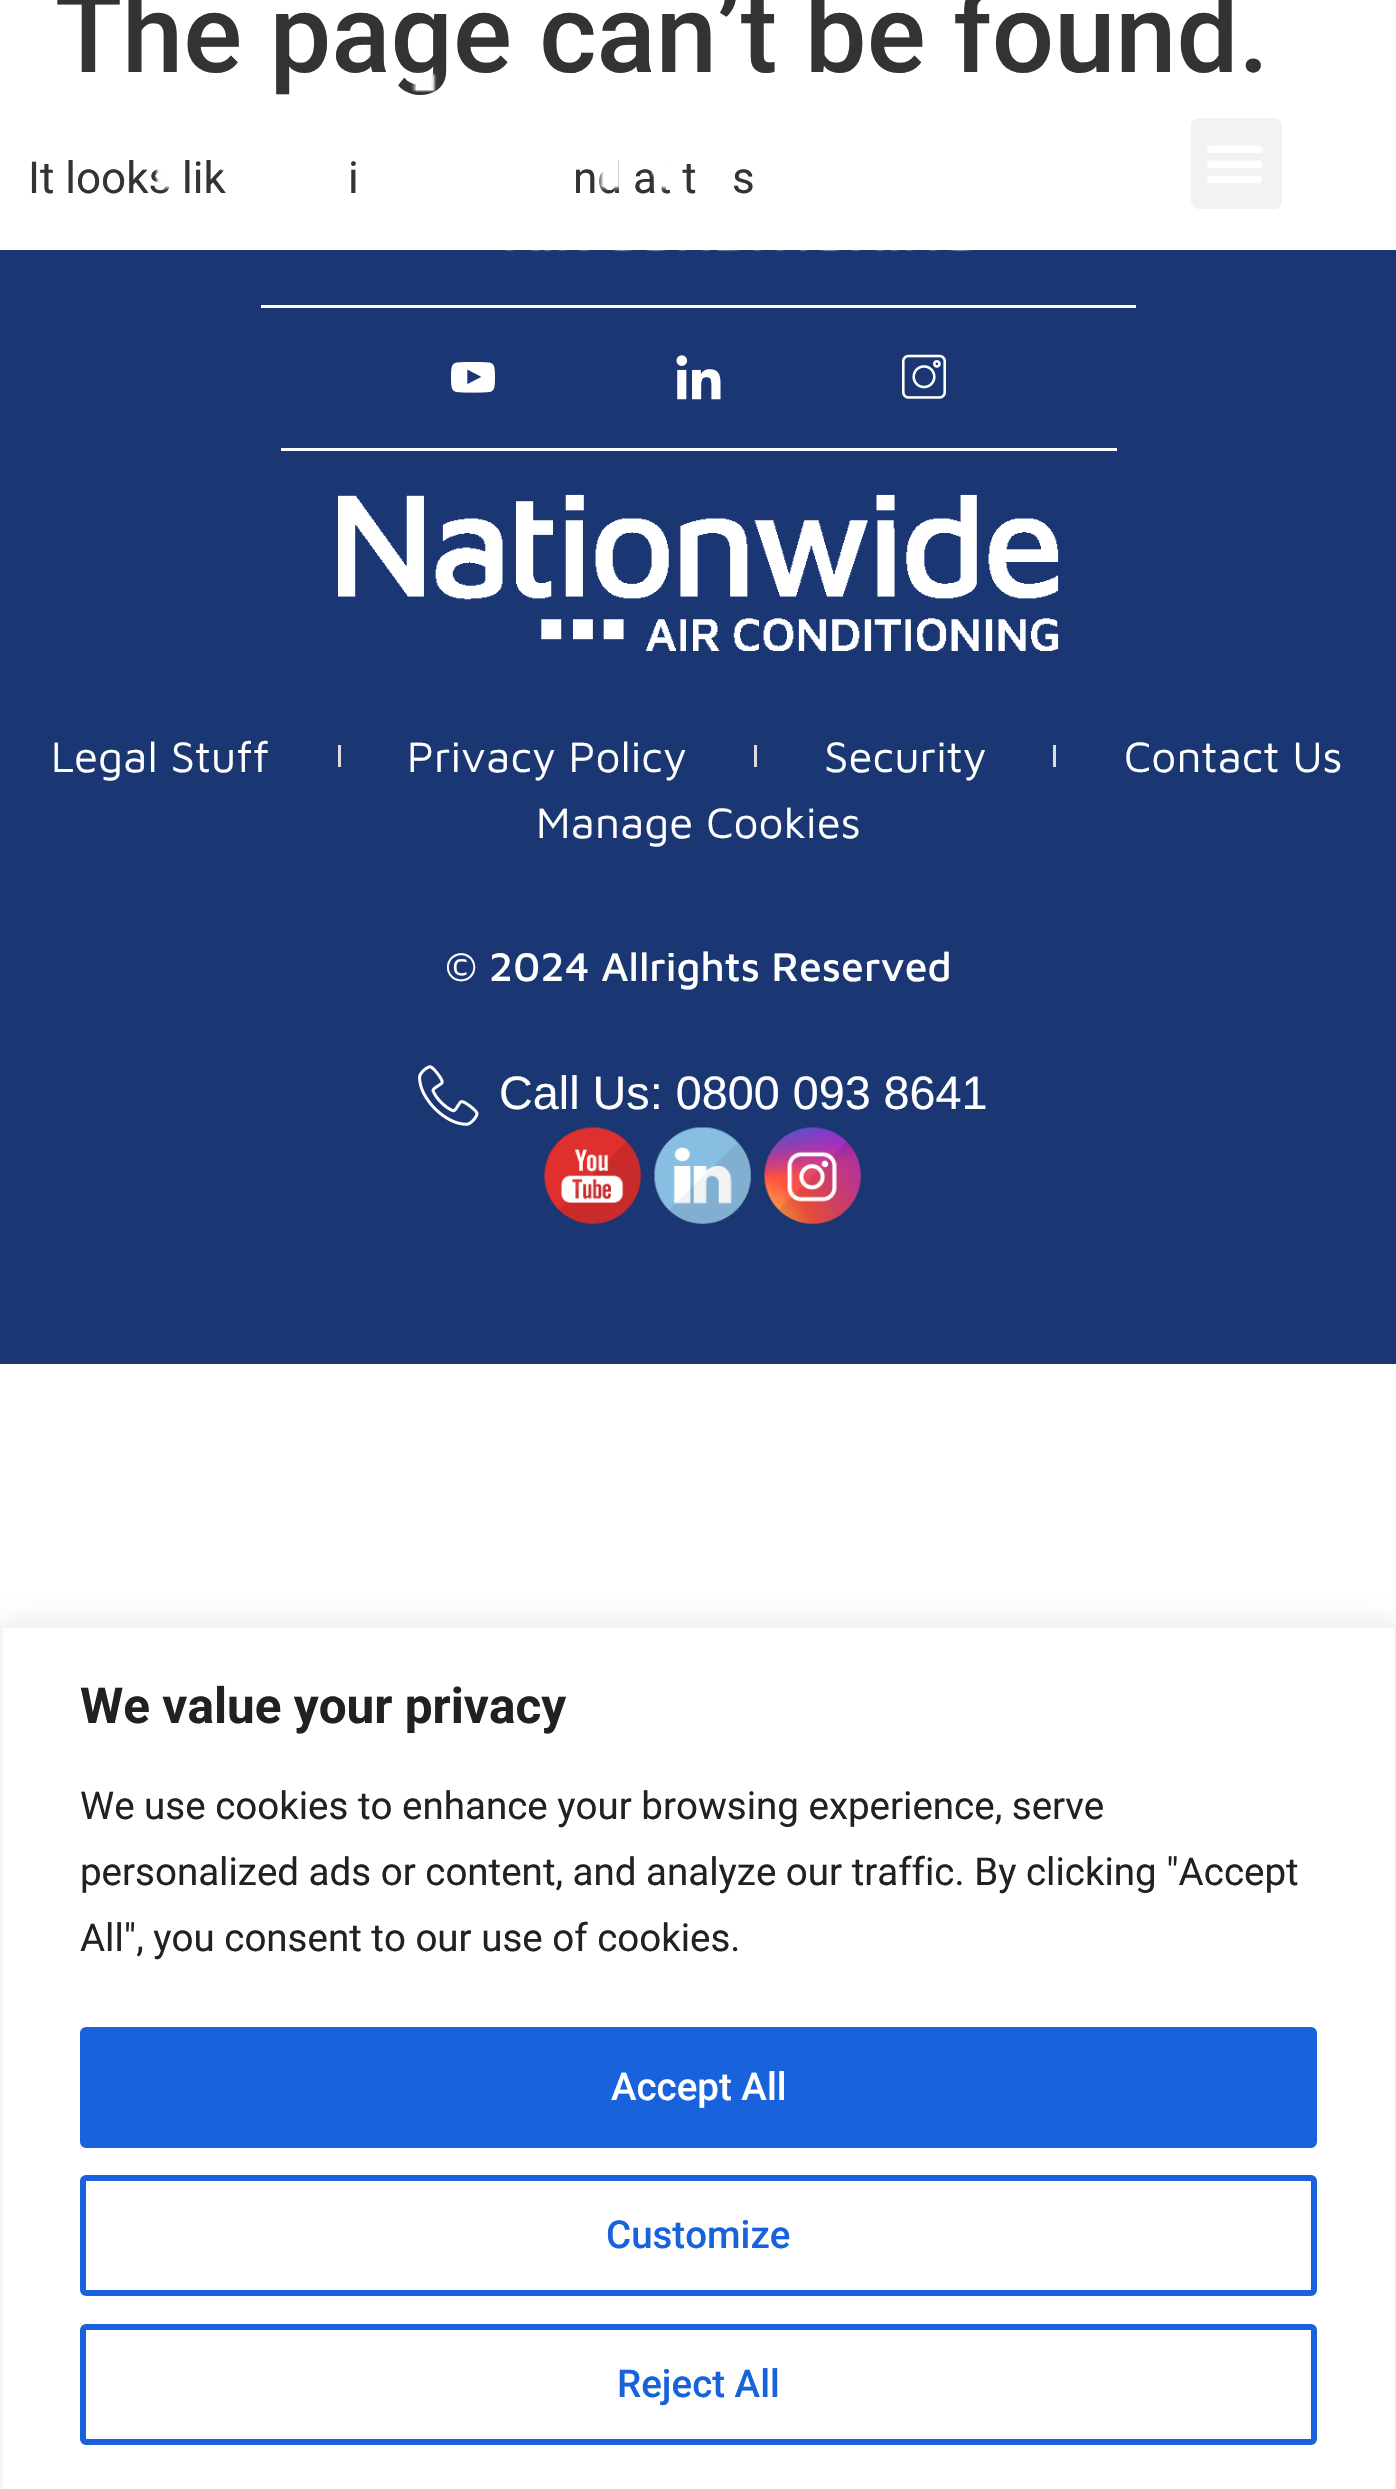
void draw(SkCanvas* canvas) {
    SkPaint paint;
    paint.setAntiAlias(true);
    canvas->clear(0xFFFFFFFF);
    SkFont font1(fontMgr->matchFamilyStyle("Roboto", SkFontStyle(500, SkFontStyle::kNormal_Width, SkFontStyle::kUpright_Slant)), 110);
    font1.setSubpixel(true);
    paint.setColor(0xFF333333);
    canvas->drawString("The page can’t be found.", 55, 72, font1, paint);
    SkFont font2(fontMgr->matchFamilyStyle("Roboto", SkFontStyle::Normal()), 44);
    font2.setSubpixel(true);
    canvas->drawString("It looks lik", 28, 193, font2, paint);
    canvas->drawString("i", 348, 193, font2, paint);
    canvas->drawString("nd at t", 573, 193, font2, paint);
    canvas->drawString("s", 732, 193, font2, paint);
    paint.setColor(0xFF1A3673);
    canvas->drawRect(SkRect::MakeXYWH(0, 250, 1396, 1114), paint);
    canvas->drawImageRect(SkImages::DeferredFromEncodedData(SkData::MakeFromFileName("img1.png")), SkRect::MakeXYWH(153, 71, 820, 181), SkSamplingOptions());
    paint.setColor(0xFFF2F2F2);
    canvas->drawRoundRect(SkRect::MakeXYWH(1191, 118, 91, 91), 8, 8, paint);
    canvas->drawImageRect(SkImages::DeferredFromEncodedData(SkData::MakeFromFileName("img2.png")), SkRect::MakeXYWH(1207, 145, 56, 38), SkSamplingOptions());
    paint.setColor(0xFFFFFFFF);
    canvas->drawRect(SkRect::MakeXYWH(261, 305, 875, 3), paint);
    canvas->drawImageRect(SkImages::DeferredFromEncodedData(SkData::MakeFromFileName("img3.png")), SkRect::MakeXYWH(451, 362, 44, 31), SkSamplingOptions());
    canvas->drawImageRect(SkImages::DeferredFromEncodedData(SkData::MakeFromFileName("img4.png")), SkRect::MakeXYWH(676, 355, 45, 45), SkSamplingOptions());
    canvas->drawImageRect(SkImages::DeferredFromEncodedData(SkData::MakeFromFileName("img5.png")), SkRect::MakeXYWH(902, 354, 44, 45), SkSamplingOptions());
    canvas->drawRect(SkRect::MakeXYWH(281, 448, 836, 3), paint);
    canvas->drawImageRect(SkImages::DeferredFromEncodedData(SkData::MakeFromFileName("img6.png")), SkRect::MakeXYWH(338, 494, 721, 157), SkSamplingOptions());
    SkFont font3(fontMgr->matchFamilyStyle("Maven Pro", SkFontStyle::Normal()), 44);
    font3.setSubpixel(true);
    canvas->drawString("Legal Stuff", 51, 772, font3, paint);
    paint.setColor(0xFFDDDDDD);
    canvas->drawRect(SkRect::MakeXYWH(338, 745, 3, 22), paint);
    paint.setColor(0xFFFFFFFF);
    canvas->drawString("Privacy Policy", 407, 772, font3, paint);
    paint.setColor(0xFFDDDDDD);
    canvas->drawRect(SkRect::MakeXYWH(754, 745, 3, 22), paint);
    paint.setColor(0xFFFFFFFF);
    canvas->drawString("Security", 824, 772, font3, paint);
    paint.setColor(0xFFDDDDDD);
    canvas->drawRect(SkRect::MakeXYWH(1053, 745, 3, 22), paint);
    paint.setColor(0xFFFFFFFF);
    canvas->drawString("Contact Us", 1124, 772, font3, paint);
    canvas->drawString("Manage Cookies", 536, 838, font3, paint);
    SkFont font4(fontMgr->matchFamilyStyle("Maven Pro", SkFontStyle(500, SkFontStyle::kNormal_Width, SkFontStyle::kUpright_Slant)), 41.25f);
    font4.setSubpixel(true);
    canvas->drawString("© 2024 Allrights Reserved", 445, 981, font4, paint);
    canvas->drawImageRect(SkImages::DeferredFromEncodedData(SkData::MakeFromFileName("img7.png")), SkRect::MakeXYWH(418, 1065, 61, 61), SkSamplingOptions());
    SkFont font5(fontMgr->matchFamilyStyle("Liberation Sans", SkFontStyle::Normal()), 46.75f);
    font5.setSubpixel(true);
    canvas->drawString("Call Us: 0800 093 8641", 499, 1109, font5, paint);
    canvas->drawImageRect(SkImages::DeferredFromEncodedData(SkData::MakeFromFileName("img8.png")), SkRect::MakeXYWH(544, 1127, 97, 97), SkSamplingOptions());
    canvas->drawImageRect(SkImages::DeferredFromEncodedData(SkData::MakeFromFileName("img9.png")), SkRect::MakeXYWH(654, 1127, 97, 97), SkSamplingOptions());
    canvas->drawImageRect(SkImages::DeferredFromEncodedData(SkData::MakeFromFileName("img10.png")), SkRect::MakeXYWH(764, 1127, 97, 97), SkSamplingOptions());
    paint.setColor(0x4DACABAB);
    paint.setMaskFilter(SkMaskFilter::MakeBlur(kNormal_SkBlurStyle, 14));
    canvas->drawRect(SkRect::MakeXYWH(0, 1623, 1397, 866), paint);
    paint.setMaskFilter(nullptr);
    paint.setColor(0xFFFFFFFF);
    canvas->drawRect(SkRect::MakeXYWH(1.5f, 1626.5f, 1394, 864), paint);
    paint.setStyle(SkPaint::kStroke_Style);
    paint.setStrokeWidth(3);
    paint.setColor(0xFFF4F4F4);
    canvas->drawRect(SkRect::MakeXYWH(1.5f, 1626.5f, 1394, 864), paint);
    SkFont font6(fontMgr->matchFamilyStyle("Roboto", SkFontStyle::Bold()), 49.5f);
    font6.setSubpixel(true);
    paint.setStyle(SkPaint::kFill_Style);
    paint.setColor(0xFF212121);
    canvas->drawString("We value your privacy", 80, 1723, font6, paint);
    SkFont font7(fontMgr->matchFamilyStyle("Roboto", SkFontStyle::Normal()), 38.5f);
    font7.setSubpixel(true);
    canvas->drawString("We use cookies to enhance your browsing experience, serve", 80, 1819, font7, paint);
    canvas->drawString("personalized ads or content, and analyze our traffic. By clicking \"Accept", 80, 1885, font7, paint);
    canvas->drawString("All\", you consent to our use of cookies.", 80, 1951, font7, paint);
    paint.setColor(0xFF1863DC);
    canvas->drawRoundRect(SkRect::MakeXYWH(83, 2030, 1231, 115), 3, 3, paint);
    paint.setStyle(SkPaint::kStroke_Style);
    paint.setStrokeWidth(6);
    canvas->drawRoundRect(SkRect::MakeXYWH(83, 2030, 1231, 115), 3, 3, paint);
    SkFont font8(fontMgr->matchFamilyStyle("Roboto", SkFontStyle(500, SkFontStyle::kNormal_Width, SkFontStyle::kUpright_Slant)), 38.5f);
    font8.setSubpixel(true);
    paint.setStyle(SkPaint::kFill_Style);
    paint.setColor(0xFFFFFFFF);
    canvas->drawString("Accept All", 611, 2100, font8, paint);
    paint.setStyle(SkPaint::kStroke_Style);
    paint.setColor(0xFF1863DC);
    canvas->drawRoundRect(SkRect::MakeXYWH(83, 2178, 1231, 115), 3, 3, paint);
    paint.setStyle(SkPaint::kFill_Style);
    canvas->drawString("Customize", 606, 2248, font8, paint);
    paint.setStyle(SkPaint::kStroke_Style);
    canvas->drawRoundRect(SkRect::MakeXYWH(83, 2327, 1231, 115), 3, 3, paint);
    paint.setStyle(SkPaint::kFill_Style);
    canvas->drawString("Reject All", 617, 2397, font8, paint);
}
